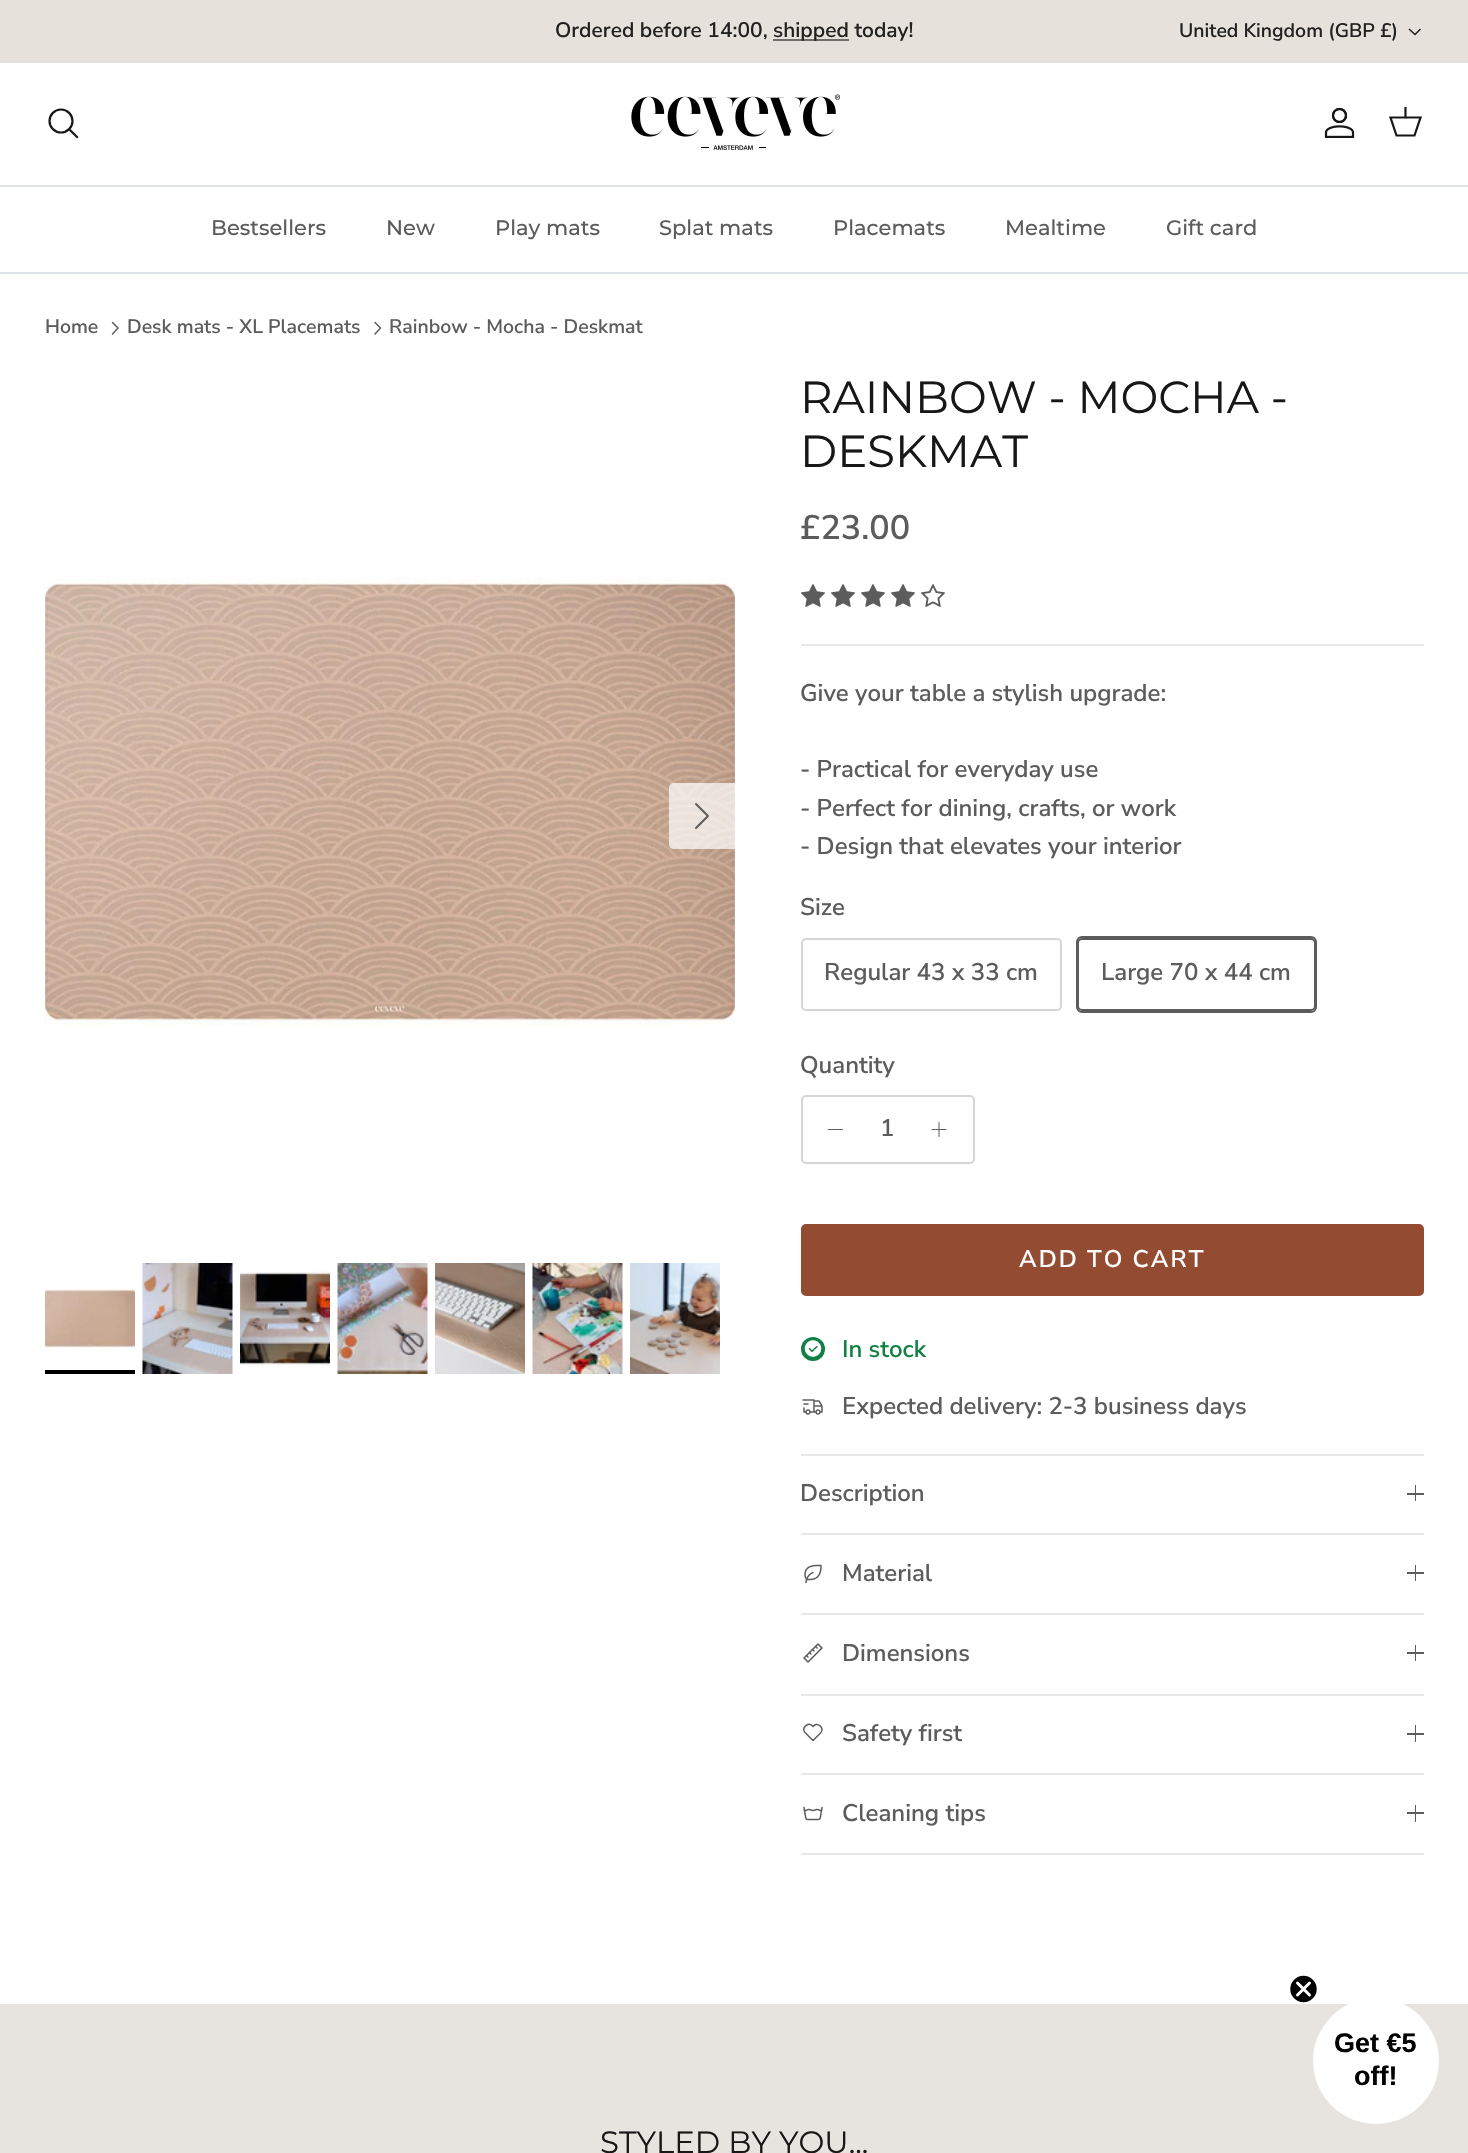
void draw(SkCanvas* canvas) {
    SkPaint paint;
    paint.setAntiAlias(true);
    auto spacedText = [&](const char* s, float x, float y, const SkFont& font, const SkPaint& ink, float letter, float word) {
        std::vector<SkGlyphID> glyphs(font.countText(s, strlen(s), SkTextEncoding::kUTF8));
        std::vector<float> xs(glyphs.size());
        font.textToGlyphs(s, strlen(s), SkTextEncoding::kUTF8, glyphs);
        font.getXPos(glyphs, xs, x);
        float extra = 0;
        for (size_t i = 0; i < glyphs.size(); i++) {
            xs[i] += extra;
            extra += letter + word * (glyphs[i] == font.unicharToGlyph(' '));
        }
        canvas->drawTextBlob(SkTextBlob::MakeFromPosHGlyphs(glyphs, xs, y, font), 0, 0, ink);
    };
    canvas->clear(0xFFFFFFFF);
    paint.setColor(0xFFE6E1DB);
    canvas->drawRect(SkRect::MakeXYWH(0, 0, 1468, 63), paint);
    SkFont font1(fontMgr->matchFamilyStyle("Nunito Sans", SkFontStyle(600, SkFontStyle::kNormal_Width, SkFontStyle::kUpright_Slant)), 21);
    font1.setSubpixel(true);
    paint.setColor(0xFF212121);
    canvas->drawString("Ordered before 14:00,", 555, 37, font1, paint);
    paint.setColor(0xFF706E6B);
    canvas->drawRect(SkRect::MakeXYWH(773, 39, 76, 2), paint);
    paint.setColor(0xFF212121);
    canvas->drawString("shipped today!", 773, 37, font1, paint);
    SkFont font2(fontMgr->matchFamilyStyle("Nunito Sans", SkFontStyle(600, SkFontStyle::kNormal_Width, SkFontStyle::kUpright_Slant)), 19.5f);
    font2.setSubpixel(true);
    canvas->drawString("United Kingdom (GBP £)", 1179, 37, font2, paint);
    paint.setStyle(SkPaint::kStroke_Style);
    paint.setStrokeWidth(1.5f);
    canvas->drawPath(SkPathBuilder().moveTo(1420.5f, 29).lineTo(1415, 34.5f).lineTo(1409, 29).detach(), paint);
    paint.setStyle(SkPaint::kFill_Style);
    paint.setColor(0xFFDFE3E8);
    canvas->drawRect(SkRect::MakeXYWH(0, 185, 1468, 2), paint);
    paint.setStyle(SkPaint::kStroke_Style);
    paint.setStrokeWidth(2.2f);
    paint.setColor(0xFF171717);
    canvas->drawCircle(61, 121, 11.5f, paint);
    paint.setStrokeCap(SkPaint::kSquare_Cap);
    canvas->drawPath(SkPathBuilder().moveTo(70.5f, 130.5f).lineTo(77, 137).detach(), paint);
    canvas->drawImageRect(SkImages::DeferredFromEncodedData(SkData::MakeFromFileName("img1.png")), SkRect::MakeXYWH(631, 94, 210, 56), SkSamplingOptions());
    canvas->drawImageRect(SkImages::DeferredFromEncodedData(SkData::MakeFromFileName("img2.png")), SkRect::MakeXYWH(1324, 107, 31, 31), SkSamplingOptions());
    paint.setStrokeCap(SkPaint::kButt_Cap);
    canvas->drawPath(SkPathBuilder().moveTo(1390.5f, 117.5f).lineTo(1420.5f, 117.5f).lineTo(1414.5f, 135.5f).lineTo(1396.5f, 135.5f).close().detach(), paint);
    paint.setStrokeCap(SkPaint::kSquare_Cap);
    canvas->drawPath(SkPathBuilder().moveTo(1405.5f, 117).lineTo(1405.5f, 108).detach(), paint);
    paint.setStyle(SkPaint::kFill_Style);
    paint.setColor(0xFFDFE3E8);
    canvas->drawRect(SkRect::MakeXYWH(0, 272, 1468, 2), paint);
    SkFont font3(fontMgr->matchFamilyStyle("Montserrat", SkFontStyle(500, SkFontStyle::kNormal_Width, SkFontStyle::kUpright_Slant)), 21);
    font3.setSubpixel(true);
    paint.setColor(0xFF5C5C5C);
    canvas->drawString("Bestsellers", 211, 235, font3, paint);
    canvas->drawString("New", 386, 235, font3, paint);
    canvas->drawString("Play mats", 495, 235, font3, paint);
    canvas->drawString("Splat mats", 659, 235, font3, paint);
    canvas->drawString("Placemats", 833, 235, font3, paint);
    canvas->drawString("Mealtime", 1005, 235, font3, paint);
    canvas->drawString("Gift card", 1166, 235, font3, paint);
    canvas->drawString("Home", 45, 333, font2, paint);
    paint.setStyle(SkPaint::kStroke_Style);
    paint.setStrokeWidth(1.5f);
    paint.setStrokeCap(SkPaint::kRound_Cap);
    paint.setStrokeJoin(SkPaint::kRound_Join);
    canvas->drawPath(SkPathBuilder().moveTo(112.5f, 334).lineTo(118, 328).lineTo(112.5f, 322.5f).detach(), paint);
    paint.setStyle(SkPaint::kFill_Style);
    canvas->drawString("Desk mats - XL Placemats", 127, 333, font2, paint);
    paint.setStyle(SkPaint::kStroke_Style);
    canvas->drawPath(SkPathBuilder().moveTo(375, 334).lineTo(380.5f, 328).lineTo(375, 322.5f).detach(), paint);
    paint.setStyle(SkPaint::kFill_Style);
    canvas->drawString("Rainbow - Mocha - Deskmat", 389, 333, font2, paint);
    canvas->drawImageRect(SkImages::DeferredFromEncodedData(SkData::MakeFromFileName("img3.png")), SkRect::MakeXYWH(45, 577, 690, 449), SkSamplingOptions());
    paint.setColor(0xB3FFFFFF);
    canvas->drawPath(SkPathBuilder().moveTo(674, 783).lineTo(735, 783).lineTo(735, 849).lineTo(674, 849).cubicTo(671, 849, 669, 847, 669, 844).lineTo(669, 788).cubicTo(669, 785, 671, 783, 674, 783).close().detach(), paint);
    paint.setStyle(SkPaint::kStroke_Style);
    paint.setStrokeWidth(2);
    paint.setColor(0xFF5C5C5C);
    canvas->drawPath(SkPathBuilder().moveTo(696, 828).lineTo(708, 816).lineTo(696, 804).detach(), paint);
    canvas->drawImageRect(SkImages::DeferredFromEncodedData(SkData::MakeFromFileName("img4.png")), SkRect::MakeXYWH(45, 1289, 90, 62), SkSamplingOptions());
    paint.setStyle(SkPaint::kFill_Style);
    paint.setColor(0xFF000000);
    canvas->drawRect(SkRect::MakeXYWH(45, 1370, 90, 4), paint);
    canvas->drawImageRect(SkImages::DeferredFromEncodedData(SkData::MakeFromFileName("img5.png")), SkRect::MakeXYWH(142, 1263, 91, 111), SkSamplingOptions());
    canvas->drawImageRect(SkImages::DeferredFromEncodedData(SkData::MakeFromFileName("img6.png")), SkRect::MakeXYWH(240, 1270, 90, 97), SkSamplingOptions());
    canvas->drawImageRect(SkImages::DeferredFromEncodedData(SkData::MakeFromFileName("img7.png")), SkRect::MakeXYWH(337, 1263, 91, 111), SkSamplingOptions());
    canvas->drawImageRect(SkImages::DeferredFromEncodedData(SkData::MakeFromFileName("img8.png")), SkRect::MakeXYWH(435, 1263, 90, 111), SkSamplingOptions());
    canvas->drawImageRect(SkImages::DeferredFromEncodedData(SkData::MakeFromFileName("img9.png")), SkRect::MakeXYWH(532, 1263, 91, 111), SkSamplingOptions());
    canvas->drawImageRect(SkImages::DeferredFromEncodedData(SkData::MakeFromFileName("img10.png")), SkRect::MakeXYWH(630, 1263, 90, 111), SkSamplingOptions());
    SkFont font4(fontMgr->matchFamilyStyle("Montserrat", SkFontStyle::Normal()), 45);
    font4.setSubpixel(true);
    paint.setColor(0xFF171717);
    canvas->drawString("RAINBOW - MOCHA -", 800, 413, font4, paint);
    canvas->drawString("DESKMAT", 800, 467, font4, paint);
    SkFont font5(fontMgr->matchFamilyStyle("Nunito Sans", SkFontStyle(600, SkFontStyle::kNormal_Width, SkFontStyle::kUpright_Slant)), 34);
    font5.setSubpixel(true);
    paint.setColor(0xFF5C5C5C);
    canvas->drawString("£23.00", 800, 539, font5, paint);
    canvas->drawImageRect(SkImages::DeferredFromEncodedData(SkData::MakeFromFileName("img11.png")), SkRect::MakeXYWH(801, 584, 24, 23), SkSamplingOptions());
    canvas->drawImageRect(SkImages::DeferredFromEncodedData(SkData::MakeFromFileName("img11.png")), SkRect::MakeXYWH(831, 584, 24, 23), SkSamplingOptions());
    canvas->drawImageRect(SkImages::DeferredFromEncodedData(SkData::MakeFromFileName("img11.png")), SkRect::MakeXYWH(861, 584, 24, 23), SkSamplingOptions());
    canvas->drawImageRect(SkImages::DeferredFromEncodedData(SkData::MakeFromFileName("img11.png")), SkRect::MakeXYWH(891, 584, 24, 23), SkSamplingOptions());
    canvas->drawImageRect(SkImages::DeferredFromEncodedData(SkData::MakeFromFileName("img12.png")), SkRect::MakeXYWH(921, 584, 24, 23), SkSamplingOptions());
    paint.setColor(0xFFE8E8E8);
    canvas->drawRect(SkRect::MakeXYWH(801, 644, 623, 2), paint);
    SkFont font6(fontMgr->matchFamilyStyle("Nunito Sans", SkFontStyle(600, SkFontStyle::kNormal_Width, SkFontStyle::kUpright_Slant)), 24);
    font6.setSubpixel(true);
    paint.setColor(0xFF5C5C5C);
    canvas->drawString("Give your table a stylish upgrade:", 800, 701, font6, paint);
    canvas->drawString("- Practical for everyday use", 800, 777, font6, paint);
    canvas->drawString("- Perfect for dining, crafts, or work", 800, 816, font6, paint);
    canvas->drawString("- Design that elevates your interior", 800, 854, font6, paint);
    canvas->drawString("Size", 800, 915, font6, paint);
    paint.setStyle(SkPaint::kStroke_Style);
    paint.setStrokeCap(SkPaint::kButt_Cap);
    paint.setStrokeJoin(SkPaint::kMiter_Join);
    paint.setColor(0xFFD6D6D6);
    canvas->drawRoundRect(SkRect::MakeXYWH(802, 939, 259, 71), 4, 4, paint);
    paint.setStyle(SkPaint::kFill_Style);
    paint.setColor(0xFF5C5C5C);
    canvas->drawString("Regular 43 x 33 cm", 824, 980, font6, paint);
    paint.setStyle(SkPaint::kStroke_Style);
    canvas->drawRoundRect(SkRect::MakeXYWH(1077, 937, 239, 75), 5, 5, paint);
    paint.setStyle(SkPaint::kFill_Style);
    paint.setColor(0xFFFFFFFF);
    canvas->drawRoundRect(SkRect::MakeXYWH(1078, 939, 237, 71), 4, 4, paint);
    paint.setStyle(SkPaint::kStroke_Style);
    paint.setColor(0xFF5C5C5C);
    canvas->drawRoundRect(SkRect::MakeXYWH(1078, 939, 237, 71), 4, 4, paint);
    paint.setStyle(SkPaint::kFill_Style);
    canvas->drawString("Large 70 x 44 cm", 1101, 980, font6, paint);
    canvas->drawString("Quantity", 800, 1073, font6, paint);
    paint.setStyle(SkPaint::kStroke_Style);
    paint.setColor(0xFFD6D6D6);
    canvas->drawRoundRect(SkRect::MakeXYWH(802, 1096, 172, 67), 4, 4, paint);
    paint.setStrokeWidth(1);
    paint.setStrokeCap(SkPaint::kRound_Cap);
    paint.setStrokeJoin(SkPaint::kRound_Join);
    paint.setColor(0xFF5C5C5C);
    canvas->drawPath(SkPathBuilder().moveTo(828.5f, 1129.5f).lineTo(842.5f, 1129.5f).detach(), paint);
    paint.setStyle(SkPaint::kFill_Style);
    canvas->drawString("1", 880, 1136, font6, paint);
    paint.setStyle(SkPaint::kStroke_Style);
    canvas->drawPath(SkPathBuilder().moveTo(939, 1122.5f).lineTo(939, 1136.5f).moveTo(932, 1129.5f).lineTo(946, 1129.5f).detach(), paint);
    paint.setStyle(SkPaint::kFill_Style);
    paint.setColor(0xFF934B32);
    canvas->drawRoundRect(SkRect::MakeXYWH(802, 1225, 621, 70), 4, 4, paint);
    paint.setStyle(SkPaint::kStroke_Style);
    paint.setStrokeWidth(2);
    paint.setStrokeCap(SkPaint::kButt_Cap);
    paint.setStrokeJoin(SkPaint::kMiter_Join);
    canvas->drawRoundRect(SkRect::MakeXYWH(802, 1225, 621, 70), 4, 4, paint);
    paint.setStyle(SkPaint::kFill_Style);
    paint.setColor(0xFFFFFFFF);
    spacedText("ADD TO CART", 1019, 1267, font6, paint, 2, 0);
    paint.setColor(0xFF108043);
    canvas->drawCircle(813, 1349, 12, paint);
    canvas->drawImageRect(SkImages::DeferredFromEncodedData(SkData::MakeFromFileName("img13.png")), SkRect::MakeXYWH(804, 1340, 18, 17), SkSamplingOptions());
    canvas->drawString("In stock", 842, 1357, font6, paint);
    canvas->drawImageRect(SkImages::DeferredFromEncodedData(SkData::MakeFromFileName("img14.png")), SkRect::MakeXYWH(802, 1399, 21, 16), SkSamplingOptions());
    paint.setColor(0xFF5C5C5C);
    canvas->drawString("Expected delivery: 2-3 business days", 842, 1414, font6, paint);
    paint.setColor(0xFFE7E7E7);
    canvas->drawRect(SkRect::MakeXYWH(801, 1454, 623, 2), paint);
    canvas->drawRect(SkRect::MakeXYWH(801, 1533, 623, 2), paint);
    paint.setColor(0xFF5C5C5C);
    canvas->drawString("Description", 800, 1501, font6, paint);
    canvas->drawRect(SkRect::MakeXYWH(1415, 1485, 1, 16), paint);
    canvas->drawRect(SkRect::MakeXYWH(1407, 1493, 17, 2), paint);
    paint.setColor(0xFFE7E7E7);
    canvas->drawRect(SkRect::MakeXYWH(801, 1613, 623, 2), paint);
    canvas->drawImageRect(SkImages::DeferredFromEncodedData(SkData::MakeFromFileName("img15.png")), SkRect::MakeXYWH(804, 1564, 18, 20), SkSamplingOptions());
    paint.setColor(0xFF5C5C5C);
    canvas->drawString("Material", 842, 1581, font6, paint);
    canvas->drawRect(SkRect::MakeXYWH(1415, 1565, 1, 16), paint);
    canvas->drawRect(SkRect::MakeXYWH(1407, 1572, 17, 2), paint);
    paint.setColor(0xFFE7E7E7);
    canvas->drawRect(SkRect::MakeXYWH(801, 1694, 623, 2), paint);
    canvas->drawImageRect(SkImages::DeferredFromEncodedData(SkData::MakeFromFileName("img16.png")), SkRect::MakeXYWH(803, 1643, 20, 20), SkSamplingOptions());
    paint.setColor(0xFF5C5C5C);
    canvas->drawString("Dimensions", 842, 1661, font6, paint);
    canvas->drawRect(SkRect::MakeXYWH(1415, 1645, 1, 16), paint);
    canvas->drawRect(SkRect::MakeXYWH(1407, 1652, 17, 2), paint);
    paint.setColor(0xFFE7E7E7);
    canvas->drawRect(SkRect::MakeXYWH(801, 1773, 623, 2), paint);
    paint.setStyle(SkPaint::kStroke_Style);
    paint.setStrokeWidth(1.5f);
    paint.setStrokeCap(SkPaint::kRound_Cap);
    paint.setStrokeJoin(SkPaint::kRound_Join);
    paint.setColor(0xFF5C5C5C);
    canvas->drawPath(SkPathBuilder().moveTo(820.5f, 1733).lineTo(813, 1740.5f).lineTo(804.5f, 1732).cubicTo(801.5f, 1726.5f, 809.5f, 1721.5f, 813, 1726.5f).cubicTo(817, 1721, 825.5f, 1728, 820.5f, 1733).detach(), paint);
    paint.setStyle(SkPaint::kFill_Style);
    canvas->drawString("Safety first", 842, 1741, font6, paint);
    canvas->drawRect(SkRect::MakeXYWH(1415, 1725, 1, 17), paint);
    canvas->drawRect(SkRect::MakeXYWH(1407, 1733, 17, 2), paint);
    paint.setColor(0xFFE7E7E7);
    canvas->drawRect(SkRect::MakeXYWH(801, 1853, 623, 2), paint);
    canvas->drawImageRect(SkImages::DeferredFromEncodedData(SkData::MakeFromFileName("img17.png")), SkRect::MakeXYWH(803, 1806, 20, 15), SkSamplingOptions());
    paint.setColor(0xFF5C5C5C);
    canvas->drawString("Cleaning tips", 842, 1821, font6, paint);
    canvas->drawRect(SkRect::MakeXYWH(1415, 1805, 1, 17), paint);
    canvas->drawRect(SkRect::MakeXYWH(1407, 1812, 17, 2), paint);
    paint.setColor(0xFFE7E4E0);
    canvas->drawRect(SkRect::MakeXYWH(0, 2004, 1468, 149), paint);
    SkFont font7(fontMgr->matchFamilyStyle("Montserrat", SkFontStyle::Normal()), 30.75f);
    font7.setSubpixel(true);
    paint.setColor(0xFF171717);
    canvas->drawString("STYLED BY YOU...", 600, 2153, font7, paint);
    paint.setColor(0xFFFFFFFF);
    canvas->drawCircle(1376, 2061, 63, paint);
    paint.setColor(0xFF000000);
    canvas->drawCircle(1303.5f, 1989, 14, paint);
    paint.setStyle(SkPaint::kStroke_Style);
    paint.setStrokeCap(SkPaint::kButt_Cap);
    paint.setStrokeJoin(SkPaint::kMiter_Join);
    paint.setColor(0xFFFFFFFF);
    canvas->drawCircle(1303.5f, 1989, 14, paint);
    paint.setStrokeWidth(3);
    paint.setStrokeCap(SkPaint::kRound_Cap);
    paint.setStrokeJoin(SkPaint::kRound_Join);
    canvas->drawPath(SkPathBuilder().moveTo(1297.5f, 1983).lineTo(1309.5f, 1995).moveTo(1297.5f, 1995).lineTo(1309.5f, 1983).close().detach(), paint);
    SkFont font8(fontMgr->matchFamilyStyle("Liberation Sans", SkFontStyle::Bold()), 27);
    font8.setSubpixel(true);
    paint.setStyle(SkPaint::kFill_Style);
    paint.setColor(0xFF000000);
    canvas->drawString("Get €5", 1334, 2052, font8, paint);
    canvas->drawString("off!", 1354, 2085, font8, paint);
}
